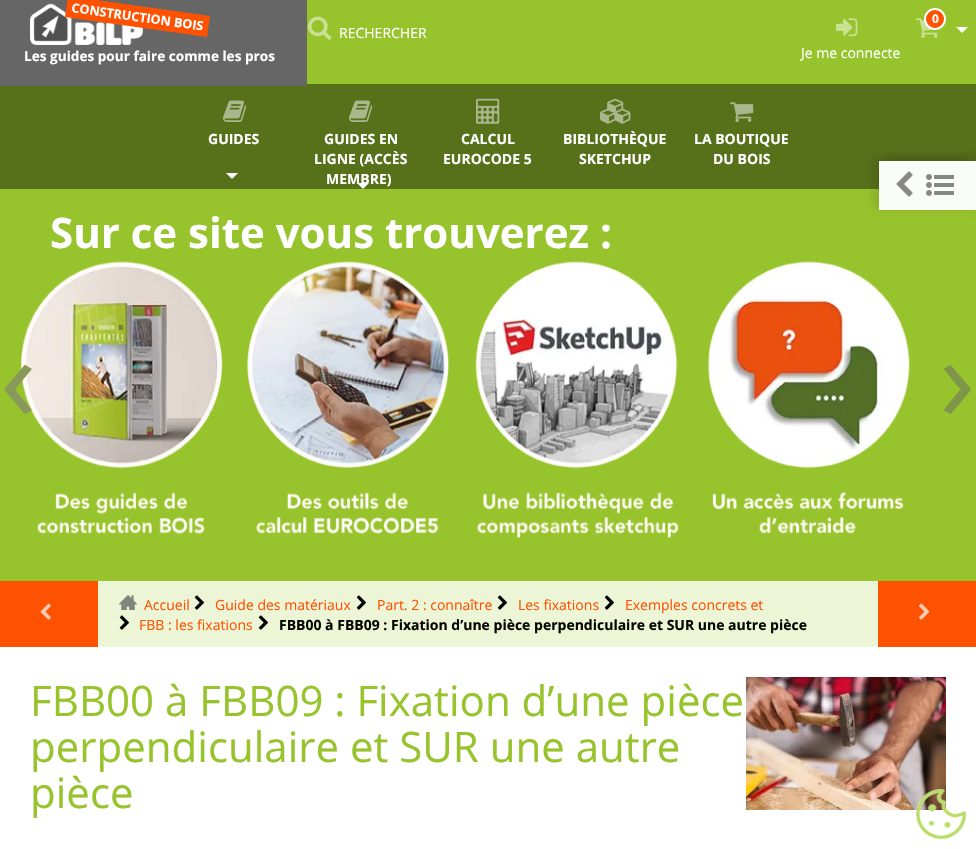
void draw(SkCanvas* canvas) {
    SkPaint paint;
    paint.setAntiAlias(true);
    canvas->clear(0xFFFFFFFF);
    paint.setColor(0xFF97C32D);
    canvas->drawRect(SkRect::MakeXYWH(307, 0, 669, 84), paint);
    paint.setColor(0xFF57701A);
    canvas->drawRect(SkRect::MakeXYWH(0, 84, 976, 105), paint);
    paint.setColor(0xFF666666);
    canvas->drawRect(SkRect::MakeXYWH(0, 0, 307, 86), paint);
    canvas->drawImageRect(SkImages::DeferredFromEncodedData(SkData::MakeFromFileName("img1.png")), SkRect::MakeXYWH(30, 3, 113, 42), SkSamplingOptions());
    paint.setColor(0xFFFF5200);
    canvas->drawPath(SkPathBuilder().moveTo(68, -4).lineTo(210, 16).lineTo(207, 37).lineTo(65, 17).close().detach(), paint);
    SkFont font1(fontMgr->matchFamilyStyle("Open Sans", SkFontStyle::Bold()), 12.6f);
    font1.setSubpixel(true);
    paint.setColor(0xFFFFFFFF);
    canvas->save();
    canvas->rotate(8, 71, 12);
    canvas->drawString("CONSTRUCTION BOIS", 71, 12, font1, paint);
    canvas->restore();
    SkFont font2(fontMgr->matchFamilyStyle("Open Sans", SkFontStyle::Bold()), 13.6f);
    font2.setSubpixel(true);
    canvas->drawString("Les guides pour faire comme les pros", 24, 61, font2, paint);
    canvas->drawImageRect(SkImages::DeferredFromEncodedData(SkData::MakeFromFileName("img2.png")), SkRect::MakeXYWH(916, 18, 24, 20), SkSamplingOptions());
    paint.setColor(0xFFFF5200);
    canvas->drawCircle(935, 19, 10, paint);
    paint.setStyle(SkPaint::kStroke_Style);
    paint.setStrokeWidth(2);
    paint.setColor(0xFFFFFFFF);
    canvas->drawCircle(935, 19, 10, paint);
    SkFont font3(fontMgr->matchFamilyStyle("Open Sans", SkFontStyle::Bold()), 12);
    font3.setSubpixel(true);
    paint.setStyle(SkPaint::kFill_Style);
    canvas->drawString("0", 932, 23, font3, paint);
    canvas->drawPath(SkPathBuilder().moveTo(956, 27).lineTo(968, 27).lineTo(962, 33).close().detach(), paint);
    canvas->drawImageRect(SkImages::DeferredFromEncodedData(SkData::MakeFromFileName("img3.png")), SkRect::MakeXYWH(308, 16, 24, 24), SkSamplingOptions());
    SkFont font4(fontMgr->matchFamilyStyle("Open Sans", SkFontStyle::Normal()), 14);
    font4.setSubpixel(true);
    canvas->drawString("RECHERCHER", 339, 38, font4, paint);
    canvas->drawImageRect(SkImages::DeferredFromEncodedData(SkData::MakeFromFileName("img4.png")), SkRect::MakeXYWH(836, 18, 22, 19), SkSamplingOptions());
    canvas->drawString("Je me connecte", 801, 58, font4, paint);
    canvas->drawImageRect(SkImages::DeferredFromEncodedData(SkData::MakeFromFileName("img5.png")), SkRect::MakeXYWH(223, 100, 24, 22), SkSamplingOptions());
    SkFont font5(fontMgr->matchFamilyStyle("Open Sans", SkFontStyle::Bold()), 14);
    font5.setSubpixel(true);
    canvas->drawString("GUIDES", 208, 144, font5, paint);
    canvas->drawPath(SkPathBuilder().moveTo(226, 173).lineTo(238, 173).lineTo(232, 179).close().detach(), paint);
    canvas->drawImageRect(SkImages::DeferredFromEncodedData(SkData::MakeFromFileName("img5.png")), SkRect::MakeXYWH(349, 100, 24, 22), SkSamplingOptions());
    canvas->drawString("GUIDES EN", 324, 144, font5, paint);
    canvas->drawString("LIGNE (ACCÈS", 314, 164, font5, paint);
    canvas->drawString("MEMBRE)", 326, 184, font5, paint);
    canvas->drawPath(SkPathBuilder().moveTo(357, 183).lineTo(369, 183).lineTo(363, 189).close().detach(), paint);
    canvas->drawImageRect(SkImages::DeferredFromEncodedData(SkData::MakeFromFileName("img6.png")), SkRect::MakeXYWH(476, 98, 24, 26), SkSamplingOptions());
    canvas->drawString("CALCUL", 461, 144, font5, paint);
    canvas->drawString("EUROCODE 5", 443, 164, font5, paint);
    canvas->drawImageRect(SkImages::DeferredFromEncodedData(SkData::MakeFromFileName("img7.png")), SkRect::MakeXYWH(600, 98, 31, 26), SkSamplingOptions());
    canvas->drawString("BIBLIOTHÈQUE", 563, 144, font5, paint);
    canvas->drawString("SKETCHUP", 579, 164, font5, paint);
    canvas->drawImageRect(SkImages::DeferredFromEncodedData(SkData::MakeFromFileName("img8.png")), SkRect::MakeXYWH(730, 102, 24, 20), SkSamplingOptions());
    canvas->drawString("LA BOUTIQUE", 694, 144, font5, paint);
    canvas->drawString("DU BOIS", 713, 164, font5, paint);
    paint.setColor(0xFF97C32D);
    canvas->drawRect(SkRect::MakeXYWH(0, 189, 976, 392), paint);
    SkFont font6(fontMgr->matchFamilyStyle("Open Sans", SkFontStyle::Bold()), 42);
    font6.setSubpixel(true);
    paint.setColor(0xFFFFFFFF);
    canvas->drawString("Sur ce site vous trouverez :", 50, 248, font6, paint);
    canvas->drawImageRect(SkImages::DeferredFromEncodedData(SkData::MakeFromFileName("img9.png")), SkRect::MakeXYWH(21, 261, 889, 277), SkSamplingOptions());
    SkFont font7(fontMgr->matchFamilyStyle("Open Sans", SkFontStyle::Normal()), 120);
    font7.setSubpixel(true);
    paint.setColor(0xFF88995B);
    canvas->drawString("‹", 0, 421, font7, paint);
    paint.setColor(0xFF7F954A);
    canvas->drawString("›", 939, 421, font7, paint);
    paint.setColor(0xFFFF5200);
    canvas->drawRect(SkRect::MakeXYWH(0, 581, 98, 66), paint);
    canvas->drawImageRect(SkImages::DeferredFromEncodedData(SkData::MakeFromFileName("img10.png")), SkRect::MakeXYWH(40, 603, 11, 17), SkSamplingOptions());
    paint.setColor(0xFFECF5D6);
    canvas->drawRect(SkRect::MakeXYWH(98, 581, 780, 66), paint);
    canvas->drawImageRect(SkImages::DeferredFromEncodedData(SkData::MakeFromFileName("img11.png")), SkRect::MakeXYWH(119, 595, 18, 15), SkSamplingOptions());
    paint.setColor(0xFFFF5200);
    canvas->drawString("Accueil", 144, 610, font4, paint);
    canvas->drawImageRect(SkImages::DeferredFromEncodedData(SkData::MakeFromFileName("img12.png")), SkRect::MakeXYWH(194, 595, 10, 15), SkSamplingOptions());
    canvas->drawString("Guide des matériaux", 215, 610, font4, paint);
    canvas->drawImageRect(SkImages::DeferredFromEncodedData(SkData::MakeFromFileName("img12.png")), SkRect::MakeXYWH(356, 595, 10, 15), SkSamplingOptions());
    canvas->drawString("Part. 2 : connaître", 377, 610, font4, paint);
    canvas->drawImageRect(SkImages::DeferredFromEncodedData(SkData::MakeFromFileName("img12.png")), SkRect::MakeXYWH(497, 595, 10, 15), SkSamplingOptions());
    canvas->drawString("Les fixations", 518, 610, font4, paint);
    canvas->drawImageRect(SkImages::DeferredFromEncodedData(SkData::MakeFromFileName("img12.png")), SkRect::MakeXYWH(604, 595, 10, 15), SkSamplingOptions());
    canvas->drawString("Exemples concrets et", 625, 610, font4, paint);
    canvas->drawImageRect(SkImages::DeferredFromEncodedData(SkData::MakeFromFileName("img12.png")), SkRect::MakeXYWH(119, 615, 10, 15), SkSamplingOptions());
    canvas->drawString("FBB : les fixations", 139, 630, font4, paint);
    canvas->drawImageRect(SkImages::DeferredFromEncodedData(SkData::MakeFromFileName("img12.png")), SkRect::MakeXYWH(258, 615, 10, 15), SkSamplingOptions());
    paint.setColor(0xFF050700);
    canvas->drawString("FBB00 à FBB09 : Fixation d’une pièce perpendiculaire et SUR une autre pièce", 279, 630, font5, paint);
    paint.setColor(0xFFFF5200);
    canvas->drawRect(SkRect::MakeXYWH(878, 581, 98, 66), paint);
    canvas->drawImageRect(SkImages::DeferredFromEncodedData(SkData::MakeFromFileName("img13.png")), SkRect::MakeXYWH(919, 603, 11, 17), SkSamplingOptions());
    paint.setColor(0x1A000000);
    paint.setMaskFilter(SkMaskFilter::MakeBlur(kNormal_SkBlurStyle, 4));
    canvas->drawRect(SkRect::MakeXYWH(885, 157, 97, 49), paint);
    paint.setMaskFilter(nullptr);
    paint.setMaskFilter(SkMaskFilter::MakeBlur(kNormal_SkBlurStyle, 4));
    canvas->drawRect(SkRect::MakeXYWH(873, 157, 97, 49), paint);
    paint.setMaskFilter(nullptr);
    paint.setColor(0xFFF9FDF8);
    canvas->drawRect(SkRect::MakeXYWH(879, 161, 97, 49), paint);
    canvas->drawImageRect(SkImages::DeferredFromEncodedData(SkData::MakeFromFileName("img14.png")), SkRect::MakeXYWH(896, 171, 17, 26), SkSamplingOptions());
    canvas->drawImageRect(SkImages::DeferredFromEncodedData(SkData::MakeFromFileName("img15.png")), SkRect::MakeXYWH(926, 174, 28, 22), SkSamplingOptions());
    SkFont font8(fontMgr->matchFamilyStyle("Open Sans", SkFontStyle::Normal()), 42);
    font8.setSubpixel(true);
    paint.setColor(0xFF97C32D);
    canvas->drawString("FBB00 à FBB09 : Fixation d’une pièce", 30, 716, font8, paint);
    canvas->drawString("perpendiculaire et SUR une autre", 30, 762, font8, paint);
    canvas->drawString("pièce", 30, 808, font8, paint);
    canvas->drawImageRect(SkImages::DeferredFromEncodedData(SkData::MakeFromFileName("img16.png")), SkRect::MakeXYWH(746, 677, 200, 133), SkSamplingOptions());
    canvas->drawImageRect(SkImages::DeferredFromEncodedData(SkData::MakeFromFileName("img17.png")), SkRect::MakeXYWH(916, 789, 50, 50), SkSamplingOptions());
}
